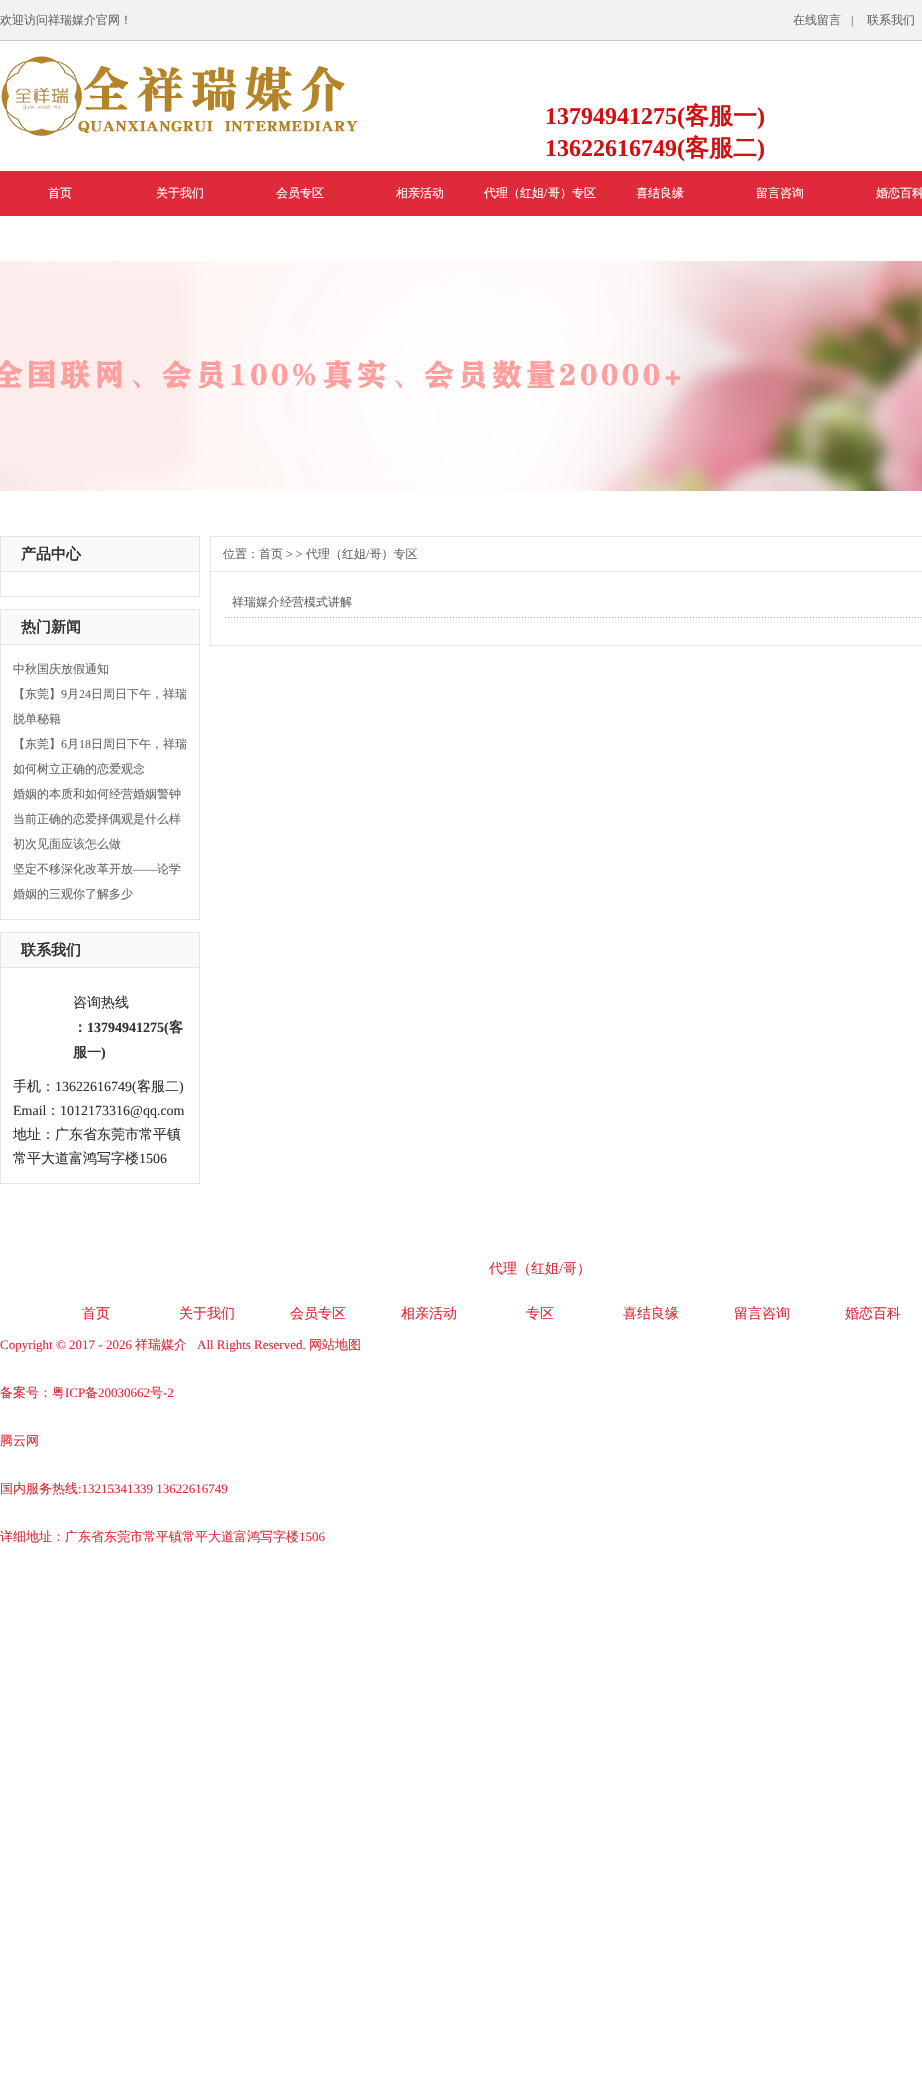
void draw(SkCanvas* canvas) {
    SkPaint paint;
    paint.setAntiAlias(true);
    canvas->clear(0xFFFFFFFF);
    paint.setColor(0xFFF2F2F2);
    canvas->drawRect(SkRect::MakeXYWH(0, 0, 922, 40), paint);
    paint.setColor(0xFFC7C7C7);
    canvas->drawRect(SkRect::MakeXYWH(0, 40, 922, 1), paint);
    SkFont font1(fontMgr->matchFamilyStyle("WenQuanYi Zen Hei", SkFontStyle(500, SkFontStyle::kNormal_Width, SkFontStyle::kUpright_Slant)), 12);
    font1.setSubpixel(true);
    paint.setColor(0xFF666666);
    canvas->drawString("欢迎访问祥瑞媒介官网！", 0, 24, font1, paint);
    canvas->drawString("在线留言", 793, 24, font1, paint);
    SkFont font2(fontMgr->matchFamilyStyle("Liberation Serif", SkFontStyle::Normal()), 12);
    font2.setSubpixel(true);
    canvas->drawString("|", 851, 24, font2, paint);
    canvas->drawString("联系我们", 867, 24, font1, paint);
    canvas->drawImageRect(SkImages::DeferredFromEncodedData(SkData::MakeFromFileName("img1.png")), SkRect::MakeXYWH(1, 56, 357, 80), SkSamplingOptions());
    SkFont font3(fontMgr->matchFamilyStyle("Liberation Serif", SkFontStyle::Bold()), 24);
    font3.setSubpixel(true);
    paint.setColor(0xFFD01013);
    canvas->drawString("13794941275(", 545, 124, font3, paint);
    SkFont font4(fontMgr->matchFamilyStyle("WenQuanYi Zen Hei", SkFontStyle::Bold()), 24);
    font4.setSubpixel(true);
    canvas->drawString("客服一", 685, 124, font4, paint);
    canvas->drawString(")", 757, 124, font3, paint);
    canvas->drawString("13622616749(", 545, 156, font3, paint);
    canvas->drawString("客服二", 685, 156, font4, paint);
    canvas->drawString(")", 757, 156, font3, paint);
    paint.setColor(0xFFE02A39);
    canvas->drawRect(SkRect::MakeXYWH(0, 171, 922, 45), paint);
    paint.setColor(0xFFFFFFFF);
    canvas->drawString("首页", 48, 197, font1, paint);
    canvas->drawString("关于我们", 156, 197, font1, paint);
    canvas->drawString("会员专区", 276, 197, font1, paint);
    canvas->drawString("相亲活动", 396, 197, font1, paint);
    canvas->drawString("代理（红姐", 484, 197, font1, paint);
    canvas->drawString("/", 544, 197, font2, paint);
    canvas->drawString("哥）专区", 548, 197, font1, paint);
    canvas->drawString("喜结良缘", 636, 197, font1, paint);
    canvas->drawString("留言咨询", 756, 197, font1, paint);
    canvas->drawString("婚恋百科", 876, 197, font1, paint);
    canvas->drawImageRect(SkImages::DeferredFromEncodedData(SkData::MakeFromFileName("img2.png")), SkRect::MakeXYWH(0, 261, 922, 230), SkSamplingOptions());
    paint.setStyle(SkPaint::kStroke_Style);
    paint.setStrokeWidth(1);
    paint.setColor(0xFFE5E5E5);
    canvas->drawRect(SkRect::MakeXYWH(0.5f, 536.5f, 199, 60), paint);
    paint.setStyle(SkPaint::kFill_Style);
    paint.setColor(0xFFFAFAFA);
    canvas->drawRect(SkRect::MakeXYWH(1, 537, 198, 34), paint);
    paint.setColor(0xFFE5E5E5);
    canvas->drawRect(SkRect::MakeXYWH(1, 571, 198, 1), paint);
    SkFont font5(fontMgr->matchFamilyStyle("WenQuanYi Zen Hei", SkFontStyle::Bold()), 15);
    font5.setSubpixel(true);
    paint.setColor(0xFF333333);
    canvas->drawString("产品中心", 21, 559, font5, paint);
    paint.setStyle(SkPaint::kStroke_Style);
    paint.setColor(0xFFE5E5E5);
    canvas->drawRect(SkRect::MakeXYWH(0.5f, 609.5f, 199, 310), paint);
    paint.setStyle(SkPaint::kFill_Style);
    paint.setColor(0xFFFAFAFA);
    canvas->drawRect(SkRect::MakeXYWH(1, 610, 198, 34), paint);
    paint.setColor(0xFFE5E5E5);
    canvas->drawRect(SkRect::MakeXYWH(1, 644, 198, 1), paint);
    paint.setColor(0xFF333333);
    canvas->drawString("热门新闻", 21, 632, font5, paint);
    paint.setColor(0xFF666666);
    canvas->drawString("中秋国庆放假通知", 13, 673, font1, paint);
    canvas->drawString("【东莞】", 13, 698, font1, paint);
    canvas->drawString("9", 61, 698, font2, paint);
    canvas->drawString("月", 67, 698, font1, paint);
    canvas->drawString("24", 79, 698, font2, paint);
    canvas->drawString("日周日下午，祥瑞", 91, 698, font1, paint);
    canvas->drawString("脱单秘籍", 13, 723, font1, paint);
    canvas->drawString("【东莞】", 13, 748, font1, paint);
    canvas->drawString("6", 61, 748, font2, paint);
    canvas->drawString("月", 67, 748, font1, paint);
    canvas->drawString("18", 79, 748, font2, paint);
    canvas->drawString("日周日下午，祥瑞", 91, 748, font1, paint);
    canvas->drawString("如何树立正确的恋爱观念", 13, 773, font1, paint);
    canvas->drawString("婚姻的本质和如何经营婚姻警钟", 13, 798, font1, paint);
    canvas->drawString("当前正确的恋爱择偶观是什么样", 13, 823, font1, paint);
    canvas->drawString("初次见面应该怎么做", 13, 848, font1, paint);
    canvas->drawString("坚定不移深化改革开放", 13, 873, font1, paint);
    canvas->drawString("——", 133, 873, font2, paint);
    canvas->drawString("论学", 157, 873, font1, paint);
    canvas->drawString("婚姻的三观你了解多少", 13, 898, font1, paint);
    paint.setStyle(SkPaint::kStroke_Style);
    paint.setColor(0xFFE5E5E5);
    canvas->drawRect(SkRect::MakeXYWH(0.5f, 932.5f, 199, 251), paint);
    paint.setStyle(SkPaint::kFill_Style);
    paint.setColor(0xFFFAFAFA);
    canvas->drawRect(SkRect::MakeXYWH(1, 933, 198, 34), paint);
    paint.setColor(0xFFE5E5E5);
    canvas->drawRect(SkRect::MakeXYWH(1, 967, 198, 1), paint);
    paint.setColor(0xFF333333);
    canvas->drawString("联系我们", 21, 955, font5, paint);
    SkFont font6(fontMgr->matchFamilyStyle("WenQuanYi Zen Hei", SkFontStyle(500, SkFontStyle::kNormal_Width, SkFontStyle::kUpright_Slant)), 14);
    font6.setSubpixel(true);
    canvas->drawString("咨询热线", 73, 1007, font6, paint);
    SkFont font7(fontMgr->matchFamilyStyle("WenQuanYi Zen Hei", SkFontStyle::Bold()), 14);
    font7.setSubpixel(true);
    canvas->drawString("：", 73, 1032, font7, paint);
    SkFont font8(fontMgr->matchFamilyStyle("Liberation Serif", SkFontStyle::Bold()), 14);
    font8.setSubpixel(true);
    canvas->drawString("13794941275(", 87, 1032, font8, paint);
    canvas->drawString("客", 169, 1032, font7, paint);
    canvas->drawString("服一", 73, 1057, font7, paint);
    canvas->drawString(")", 101, 1057, font8, paint);
    canvas->drawString("手机：", 13, 1091, font6, paint);
    SkFont font9(fontMgr->matchFamilyStyle("Liberation Serif", SkFontStyle::Normal()), 14);
    font9.setSubpixel(true);
    canvas->drawString("13622616749(", 55, 1091, font9, paint);
    canvas->drawString("客服二", 137, 1091, font6, paint);
    canvas->drawString(")", 179, 1091, font9, paint);
    canvas->drawString("Email", 13, 1115, font9, paint);
    canvas->drawString("：", 46, 1115, font6, paint);
    canvas->drawString("1012173316@qq.com", 60, 1115, font9, paint);
    canvas->drawString("地址：广东省东莞市常平镇", 13, 1139, font6, paint);
    canvas->drawString("常平大道富鸿写字楼", 13, 1163, font6, paint);
    canvas->drawString("1506", 139, 1163, font9, paint);
    paint.setStyle(SkPaint::kStroke_Style);
    paint.setColor(0xFFE5E5E5);
    canvas->drawRect(SkRect::MakeXYWH(210.5f, 536.5f, 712, 35), paint);
    paint.setStyle(SkPaint::kFill_Style);
    paint.setColor(0xFF666666);
    canvas->drawString("位置：首页", 223, 558, font1, paint);
    canvas->drawString("代理（红姐 哥）专区", 306, 558, font1, paint);
    canvas->drawString("> >", 286, 558, font2, paint);
    canvas->drawString("/", 366, 558, font2, paint);
    paint.setColor(0xFFE5E5E5);
    canvas->drawRect(SkRect::MakeXYWH(210, 645, 712, 1), paint);
    canvas->drawRect(SkRect::MakeXYWH(210, 572, 1, 74), paint);
    canvas->drawImageRect(SkImages::DeferredFromEncodedData(SkData::MakeFromFileName("img3.png")), SkRect::MakeXYWH(225, 617, 697, 1), SkSamplingOptions());
    paint.setColor(0xFF666666);
    canvas->drawString("祥瑞媒介经营模式讲解", 232, 606, font1, paint);
    paint.setColor(0xFFE02A39);
    canvas->drawString("首页", 82, 1318, font6, paint);
    canvas->drawString("关于我们", 179, 1318, font6, paint);
    canvas->drawString("会员专区", 290, 1318, font6, paint);
    canvas->drawString("相亲活动", 401, 1318, font6, paint);
    canvas->drawString("代理（红姐", 489, 1273, font6, paint);
    canvas->drawString("/", 559, 1273, font9, paint);
    canvas->drawString("哥）", 563, 1273, font6, paint);
    canvas->drawString("专区", 526, 1318, font6, paint);
    canvas->drawString("喜结良缘", 623, 1318, font6, paint);
    canvas->drawString("留言咨询", 734, 1318, font6, paint);
    canvas->drawString("婚恋百科", 845, 1318, font6, paint);
    SkFont font10(fontMgr->matchFamilyStyle("Liberation Serif", SkFontStyle::Normal()), 13);
    font10.setSubpixel(true);
    canvas->drawString("Copyright © 2017 - 2026", 0, 1349, font10, paint);
    SkFont font11(fontMgr->matchFamilyStyle("WenQuanYi Zen Hei", SkFontStyle(500, SkFontStyle::kNormal_Width, SkFontStyle::kUpright_Slant)), 13);
    font11.setSubpixel(true);
    canvas->drawString("祥瑞媒介", 135, 1349, font11, paint);
    canvas->drawString("All Rights Reserved.", 197, 1349, font10, paint);
    canvas->drawString("网站地图", 309, 1349, font11, paint);
    canvas->drawString("备案号：粤", 0, 1397, font11, paint);
    canvas->drawString("ICP", 65, 1397, font10, paint);
    canvas->drawString("备", 85, 1397, font11, paint);
    canvas->drawString("20030662", 98, 1397, font10, paint);
    canvas->drawString("号", 150, 1397, font11, paint);
    canvas->drawString("-2", 163, 1397, font10, paint);
    canvas->drawString("腾云网", 0, 1445, font11, paint);
    canvas->drawString("国内服务热线", 0, 1493, font11, paint);
    canvas->drawString(":13215341339 13622616749", 78, 1493, font10, paint);
    canvas->drawString("详细地址：广东省东莞市常平镇常平大道富鸿写字楼", 0, 1541, font11, paint);
    canvas->drawString("1506", 299, 1541, font10, paint);
}
